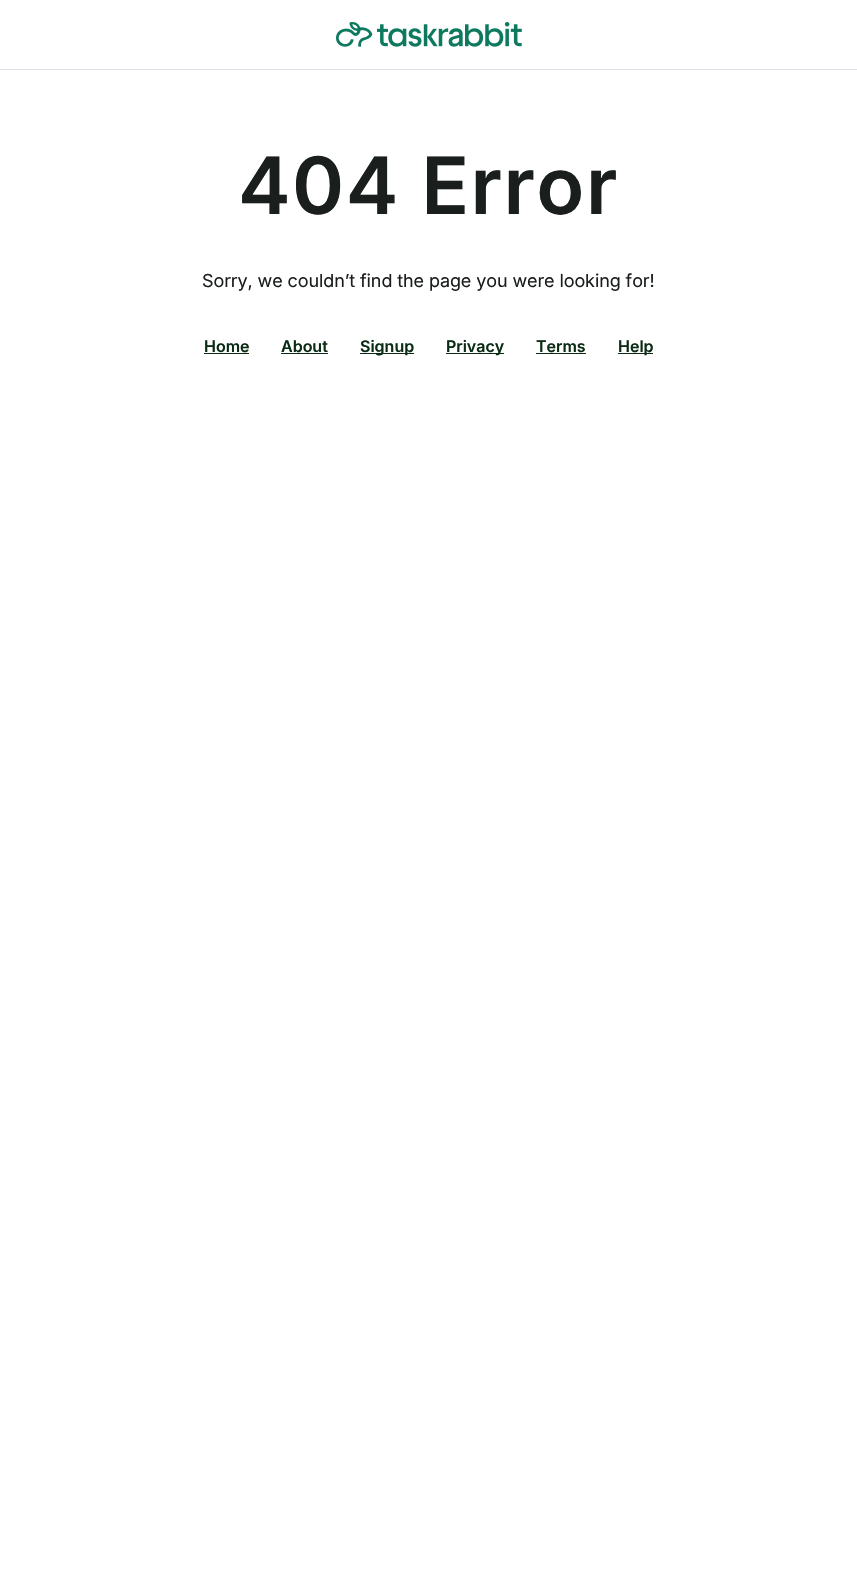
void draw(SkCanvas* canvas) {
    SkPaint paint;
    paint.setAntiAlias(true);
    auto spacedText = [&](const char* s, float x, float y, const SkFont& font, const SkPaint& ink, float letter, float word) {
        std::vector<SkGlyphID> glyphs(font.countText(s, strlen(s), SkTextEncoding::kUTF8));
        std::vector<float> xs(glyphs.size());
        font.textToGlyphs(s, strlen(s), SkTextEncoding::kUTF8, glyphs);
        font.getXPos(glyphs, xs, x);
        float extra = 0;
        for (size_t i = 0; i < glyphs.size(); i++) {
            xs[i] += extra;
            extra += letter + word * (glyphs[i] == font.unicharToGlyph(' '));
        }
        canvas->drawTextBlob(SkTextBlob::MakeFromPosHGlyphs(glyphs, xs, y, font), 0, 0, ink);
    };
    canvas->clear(0xFFFFFFFF);
    paint.setColor(0xFFDCE0E6);
    canvas->drawRect(SkRect::MakeXYWH(0, 69, 857, 1), paint);
    canvas->drawImageRect(SkImages::DeferredFromEncodedData(SkData::MakeFromFileName("img1.png")), SkRect::MakeXYWH(336, 22, 186, 25), SkSamplingOptions());
    SkFont font1(fontMgr->matchFamilyStyle("Inter", SkFontStyle(600, SkFontStyle::kNormal_Width, SkFontStyle::kUpright_Slant)), 79);
    font1.setSubpixel(true);
    paint.setColor(0xFF1A1E1D);
    spacedText("404 Error", 238, 214, font1, paint, 1.5f, 0);
    SkFont font2(fontMgr->matchFamilyStyle("Inter", SkFontStyle::Normal()), 18);
    font2.setSubpixel(true);
    spacedText("Sorry, we couldn’t find the page you were looking for!", 202, 287, font2, paint, -0.1f, 0);
    SkFont font3(fontMgr->matchFamilyStyle("Inter", SkFontStyle(600, SkFontStyle::kNormal_Width, SkFontStyle::kUpright_Slant)), 16);
    font3.setSubpixel(true);
    paint.setColor(0xFF0A2B14);
    canvas->drawString("Home", 204, 352, font3, paint);
    canvas->drawRect(SkRect::MakeXYWH(204, 353, 45, 1), paint);
    canvas->drawString("About", 281, 352, font3, paint);
    canvas->drawRect(SkRect::MakeXYWH(281, 353, 47, 1), paint);
    canvas->drawRect(SkRect::MakeXYWH(360, 353, 54, 1), paint);
    canvas->drawString("Signup", 360, 352, font3, paint);
    canvas->drawRect(SkRect::MakeXYWH(446, 353, 58, 1), paint);
    canvas->drawString("Privacy", 446, 352, font3, paint);
    canvas->drawString("Terms", 536, 352, font3, paint);
    canvas->drawRect(SkRect::MakeXYWH(536, 353, 50, 1), paint);
    canvas->drawRect(SkRect::MakeXYWH(618, 353, 35, 1), paint);
    canvas->drawString("Help", 618, 352, font3, paint);
}
